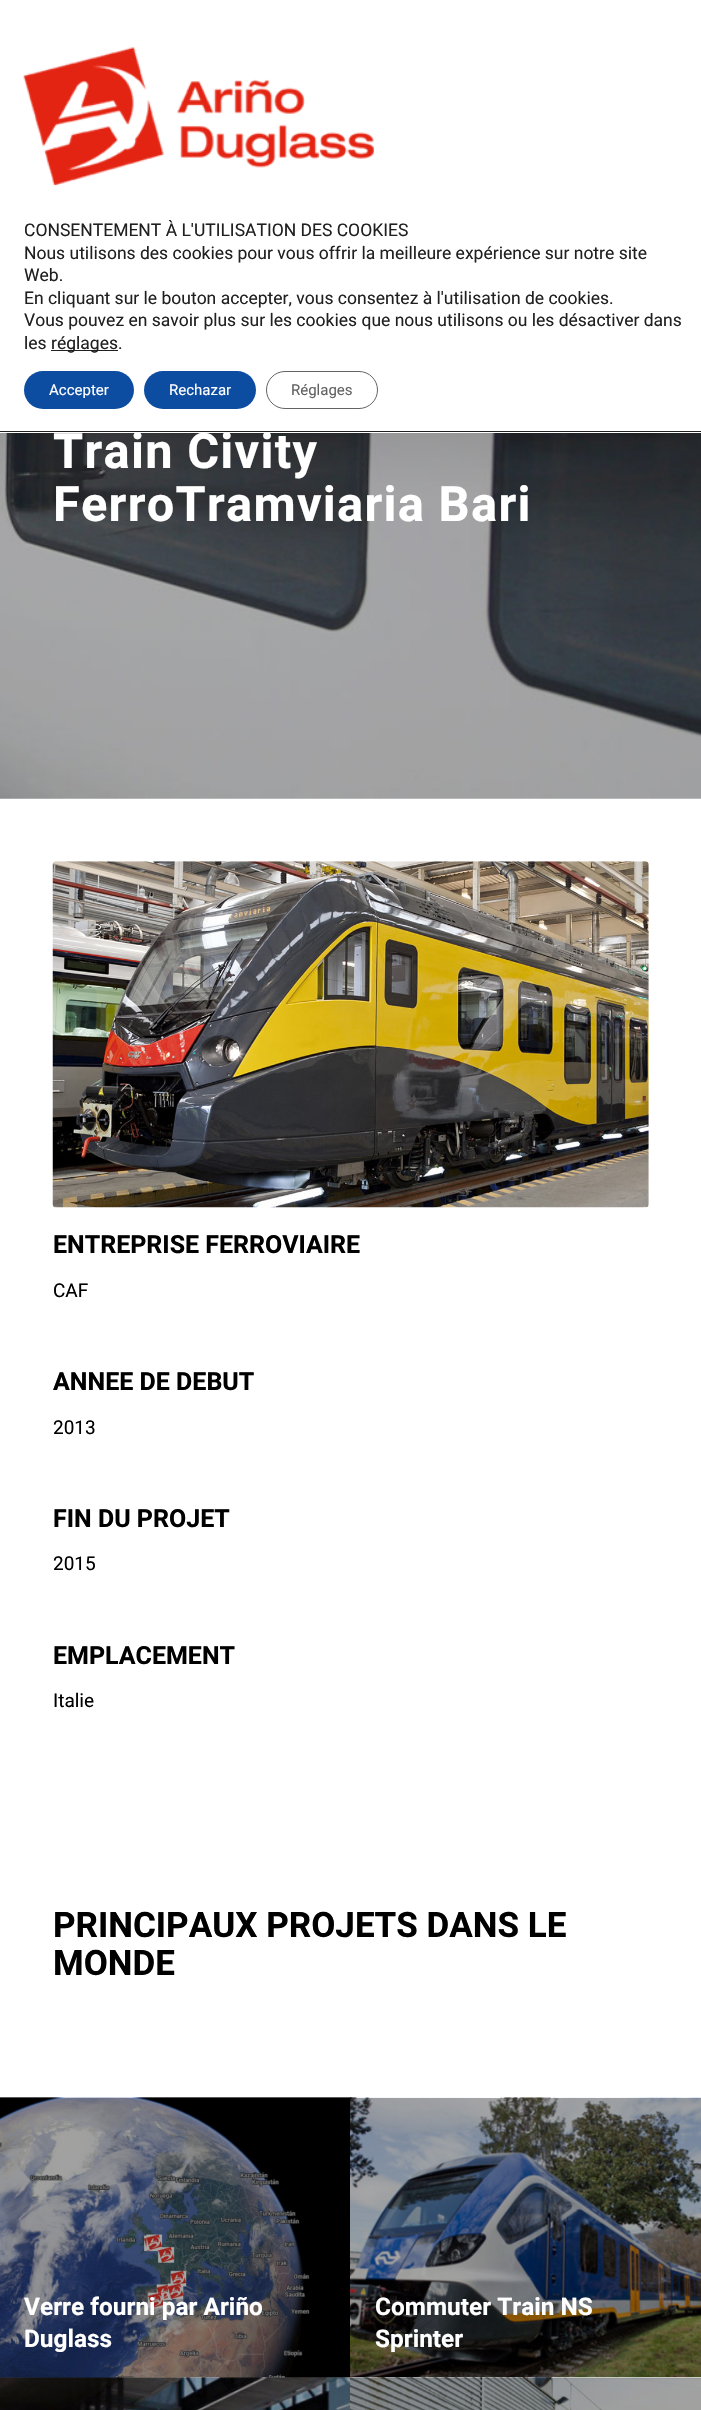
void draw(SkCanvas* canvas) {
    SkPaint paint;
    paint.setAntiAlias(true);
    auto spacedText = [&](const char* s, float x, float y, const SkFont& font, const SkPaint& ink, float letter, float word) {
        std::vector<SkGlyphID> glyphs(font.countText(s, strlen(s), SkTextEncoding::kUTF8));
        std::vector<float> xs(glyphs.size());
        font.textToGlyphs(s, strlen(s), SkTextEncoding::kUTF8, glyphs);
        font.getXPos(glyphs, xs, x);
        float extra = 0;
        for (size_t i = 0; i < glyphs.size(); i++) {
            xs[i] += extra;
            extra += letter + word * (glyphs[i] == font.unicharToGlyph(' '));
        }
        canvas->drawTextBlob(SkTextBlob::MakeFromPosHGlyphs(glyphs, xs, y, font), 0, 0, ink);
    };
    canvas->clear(0xFFFFFFFF);
    paint.setColor(0xFF202020);
    canvas->drawRect(SkRect::MakeXYWH(0, 431, 701, 1), paint);
    canvas->drawImageRect(SkImages::DeferredFromEncodedData(SkData::MakeFromFileName("img1.png")), SkRect::MakeXYWH(23, 47, 351, 139), SkSamplingOptions());
    SkFont font1(fontMgr->matchFamilyStyle("Heebo", SkFontStyle::Normal()), 17.5f);
    font1.setSubpixel(true);
    canvas->drawString("CONSENTEMENT À L'UTILISATION DES COOKIES", 24, 236, font1, paint);
    canvas->drawString("Nous utilisons des cookies pour vous offrir la meilleure expérience sur notre site", 24, 259, font1, paint);
    canvas->drawString("Web.", 24, 281, font1, paint);
    canvas->drawString("En cliquant sur le bouton accepter, vous consentez à l'utilisation de cookies.", 24, 304, font1, paint);
    canvas->drawString("Vous pouvez en savoir plus sur les cookies que nous utilisons ou les désactiver dans", 24, 326, font1, paint);
    canvas->drawString("les", 24, 349, font1, paint);
    canvas->drawRect(SkRect::MakeXYWH(51, 350, 67, 1), paint);
    canvas->drawString("réglages.", 51, 349, font1, paint);
    paint.setColor(0xFF0C4DA2);
    canvas->drawRoundRect(SkRect::MakeXYWH(24, 371, 110, 38), 19, 19, paint);
    SkFont font2(fontMgr->matchFamilyStyle("Heebo", SkFontStyle::Normal()), 15);
    font2.setSubpixel(true);
    paint.setColor(0xFFFFFFFF);
    canvas->drawString("Accepter", 49, 395, font2, paint);
    paint.setColor(0xFF0C4DA2);
    canvas->drawRoundRect(SkRect::MakeXYWH(144, 371, 112, 38), 19, 19, paint);
    paint.setColor(0xFFFFFFFF);
    canvas->drawString("Rechazar", 169, 395, font2, paint);
    paint.setStyle(SkPaint::kStroke_Style);
    paint.setStrokeWidth(1);
    paint.setColor(0xFF636363);
    canvas->drawRoundRect(SkRect::MakeXYWH(266.5f, 371.5f, 111, 37), 18.5f, 18.5f, paint);
    paint.setStyle(SkPaint::kFill_Style);
    canvas->drawString("Réglages", 291, 395, font2, paint);
    canvas->drawImageRect(SkImages::DeferredFromEncodedData(SkData::MakeFromFileName("img2.png")), SkRect::MakeXYWH(0, 433, 701, 366), SkSamplingOptions());
    SkFont font3(fontMgr->matchFamilyStyle("Heebo", SkFontStyle::Bold()), 48.75f);
    font3.setSubpixel(true);
    paint.setColor(0xFFFFFFFF);
    spacedText("Train Civity", 53, 468, font3, paint, 1.25f, 0);
    spacedText("FerroTramviaria Bari", 53, 521, font3, paint, 1.25f, 0);
    canvas->drawImageRect(SkImages::DeferredFromEncodedData(SkData::MakeFromFileName("img3.png")), SkRect::MakeXYWH(52, 861, 597, 347), SkSamplingOptions());
    SkFont font4(fontMgr->matchFamilyStyle("Heebo", SkFontStyle::Bold()), 25);
    font4.setSubpixel(true);
    paint.setColor(0xFF000000);
    canvas->drawString("ENTREPRISE FERROVIAIRE", 53, 1253, font4, paint);
    SkFont font5(fontMgr->matchFamilyStyle("Heebo", SkFontStyle::Normal()), 19);
    font5.setSubpixel(true);
    canvas->drawString("CAF", 53, 1297, font5, paint);
    canvas->drawString("ANNEE DE DEBUT", 53, 1390, font4, paint);
    canvas->drawString("2013", 53, 1434, font5, paint);
    canvas->drawString("FIN DU PROJET", 53, 1527, font4, paint);
    canvas->drawString("2015", 53, 1570, font5, paint);
    canvas->drawString("EMPLACEMENT", 53, 1664, font4, paint);
    canvas->drawString("Italie", 53, 1707, font5, paint);
    SkFont font6(fontMgr->matchFamilyStyle("Heebo", SkFontStyle::Bold()), 35);
    font6.setSubpixel(true);
    canvas->drawString("PRINCIPAUX PROJETS DANS LE", 53, 1937, font6, paint);
    canvas->drawString("MONDE", 53, 1975, font6, paint);
    canvas->drawImageRect(SkImages::DeferredFromEncodedData(SkData::MakeFromFileName("img4.png")), SkRect::MakeXYWH(0, 2097, 352, 282), SkSamplingOptions());
    SkFont font7(fontMgr->matchFamilyStyle("Heebo", SkFontStyle::Bold()), 24.4f);
    font7.setSubpixel(true);
    paint.setColor(0xFFFFFFFF);
    canvas->drawString("Verre fourni par Ariño", 24, 2315, font7, paint);
    canvas->drawString("Duglass", 24, 2347, font7, paint);
    canvas->drawImageRect(SkImages::DeferredFromEncodedData(SkData::MakeFromFileName("img5.png")), SkRect::MakeXYWH(350, 2097, 351, 282), SkSamplingOptions());
    paint.setColor(0x59000000);
    canvas->drawRect(SkRect::MakeXYWH(350, 2098, 351, 281), paint);
    paint.setColor(0xFFFFFFFF);
    canvas->drawString("Commuter Train NS", 375, 2315, font7, paint);
    canvas->drawString("Sprinter", 375, 2347, font7, paint);
    canvas->drawImageRect(SkImages::DeferredFromEncodedData(SkData::MakeFromFileName("img6.png")), SkRect::MakeXYWH(0, 2377, 352, 33), SkSamplingOptions());
    paint.setColor(0x59000000);
    canvas->drawRect(SkRect::MakeXYWH(0, 2378, 351, 32), paint);
    canvas->drawImageRect(SkImages::DeferredFromEncodedData(SkData::MakeFromFileName("img7.png")), SkRect::MakeXYWH(350, 2377, 351, 33), SkSamplingOptions());
    canvas->drawRect(SkRect::MakeXYWH(350, 2378, 351, 32), paint);
}
